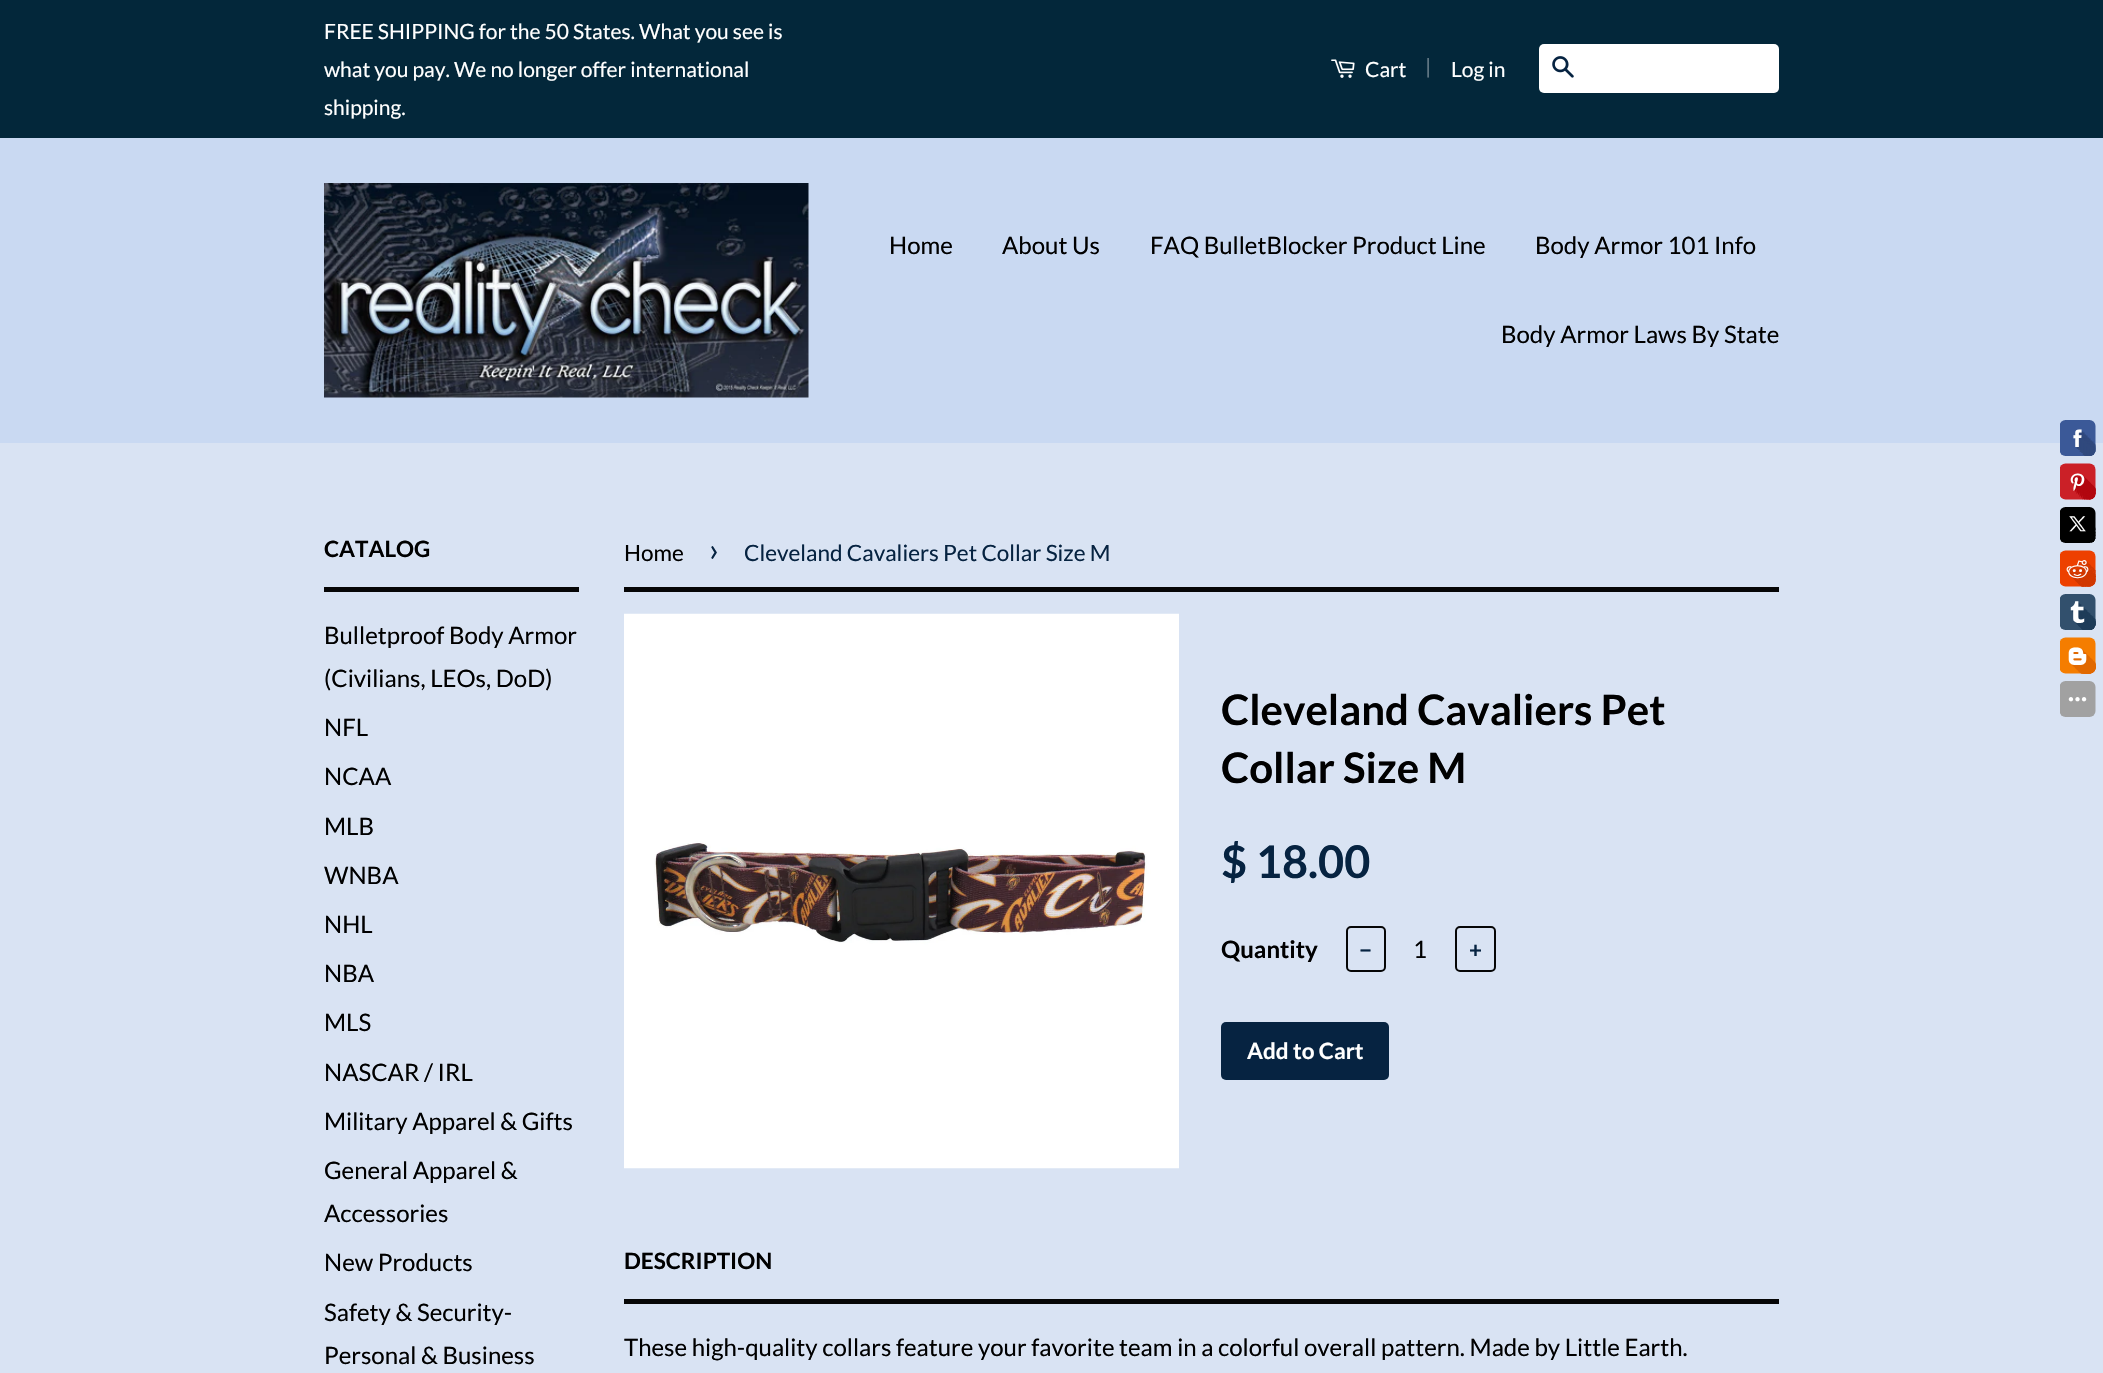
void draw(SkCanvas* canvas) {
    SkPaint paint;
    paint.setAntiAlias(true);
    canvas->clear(0xFFD9E3F3);
    paint.setColor(0xFF03273A);
    canvas->drawRect(SkRect::MakeXYWH(0, 0, 2103, 138), paint);
    SkFont font1(fontMgr->matchFamilyStyle("Lato", SkFontStyle::Normal()), 21);
    font1.setSubpixel(true);
    paint.setColor(0xFFFFFFFF);
    canvas->drawString("FREE SHIPPING for the 50 States. What you see is", 324, 39, font1, paint);
    canvas->drawString("what you pay. We no longer offer international", 324, 77, font1, paint);
    canvas->drawString("shipping.", 324, 115, font1, paint);
    canvas->drawImageRect(SkImages::DeferredFromEncodedData(SkData::MakeFromFileName("img1.png")), SkRect::MakeXYWH(1331, 59, 24, 19), SkSamplingOptions());
    canvas->drawString("Cart", 1365, 77, font1, paint);
    paint.setColor(0xFF687D89);
    canvas->drawString("|", 1425, 74, font1, paint);
    paint.setColor(0xFFFFFFFF);
    canvas->drawString("Log in", 1451, 77, font1, paint);
    canvas->drawRoundRect(SkRect::MakeXYWH(1539, 44, 240, 49), 5, 5, paint);
    canvas->drawImageRect(SkImages::DeferredFromEncodedData(SkData::MakeFromFileName("img2.png")), SkRect::MakeXYWH(1552, 56, 22, 22), SkSamplingOptions());
    paint.setColor(0xFFC9D9F2);
    canvas->drawRect(SkRect::MakeXYWH(0, 138, 2103, 305), paint);
    canvas->drawImageRect(SkImages::DeferredFromEncodedData(SkData::MakeFromFileName("img3.png")), SkRect::MakeXYWH(324, 183, 485, 215), SkSamplingOptions());
    SkFont font2(fontMgr->matchFamilyStyle("Lato", SkFontStyle::Normal()), 24);
    font2.setSubpixel(true);
    paint.setColor(0xFF000000);
    canvas->drawString("Home", 889, 254, font2, paint);
    canvas->drawString("About Us", 1002, 254, font2, paint);
    canvas->drawString("FAQ BulletBlocker Product Line", 1150, 254, font2, paint);
    canvas->drawString("Body Armor 101 Info", 1535, 254, font2, paint);
    canvas->drawString("Body Armor Laws By State", 1501, 343, font2, paint);
    paint.setColor(0xFF060606);
    canvas->drawRect(SkRect::MakeXYWH(324, 587, 255, 5), paint);
    SkFont font3(fontMgr->matchFamilyStyle("Lato", SkFontStyle::Bold()), 22.5f);
    font3.setSubpixel(true);
    paint.setColor(0xFF000000);
    canvas->drawString("CATALOG", 324, 557, font3, paint);
    canvas->drawString("Bulletproof Body Armor", 324, 644, font2, paint);
    canvas->drawString("(Civilians, LEOs, DoD)", 324, 687, font2, paint);
    canvas->drawString("NFL", 324, 736, font2, paint);
    canvas->drawString("NCAA", 324, 785, font2, paint);
    canvas->drawString("MLB", 324, 835, font2, paint);
    canvas->drawString("WNBA", 324, 884, font2, paint);
    canvas->drawString("NHL", 324, 933, font2, paint);
    canvas->drawString("NBA", 324, 982, font2, paint);
    canvas->drawString("MLS", 324, 1031, font2, paint);
    canvas->drawString("NASCAR / IRL", 324, 1081, font2, paint);
    canvas->drawString("Military Apparel & Gifts", 324, 1130, font2, paint);
    canvas->drawString("General Apparel &", 324, 1179, font2, paint);
    canvas->drawString("Accessories", 324, 1222, font2, paint);
    canvas->drawString("New Products", 324, 1271, font2, paint);
    canvas->drawString("Safety & Security-", 324, 1321, font2, paint);
    canvas->drawString("Personal & Business", 324, 1364, font2, paint);
    paint.setColor(0xFF060606);
    canvas->drawRect(SkRect::MakeXYWH(624, 587, 1155, 5), paint);
    SkFont font4(fontMgr->matchFamilyStyle("Lato", SkFontStyle::Normal()), 22.5f);
    font4.setSubpixel(true);
    paint.setColor(0xFF000000);
    canvas->drawString("Home", 624, 561, font4, paint);
    SkFont font5(fontMgr->matchFamilyStyle("Lato", SkFontStyle::Normal()), 32);
    font5.setSubpixel(true);
    paint.setColor(0xFF062341);
    canvas->drawString("›", 709, 561, font5, paint);
    canvas->drawString("Cleveland Cavaliers Pet Collar Size M", 744, 561, font4, paint);
    canvas->drawImageRect(SkImages::DeferredFromEncodedData(SkData::MakeFromFileName("img4.png")), SkRect::MakeXYWH(624, 613, 555, 556), SkSamplingOptions());
    SkFont font6(fontMgr->matchFamilyStyle("Lato", SkFontStyle::Bold()), 42);
    font6.setSubpixel(true);
    paint.setColor(0xFF000000);
    canvas->drawString("Cleveland Cavaliers Pet", 1221, 725, font6, paint);
    canvas->drawString("Collar Size M", 1221, 783, font6, paint);
    SkFont font7(fontMgr->matchFamilyStyle("Lato", SkFontStyle::Bold()), 45);
    font7.setSubpixel(true);
    paint.setColor(0xFF062341);
    canvas->drawString("$ 18.00", 1221, 878, font7, paint);
    SkFont font8(fontMgr->matchFamilyStyle("Lato", SkFontStyle::Bold()), 24);
    font8.setSubpixel(true);
    paint.setColor(0xFF000000);
    canvas->drawString("Quantity", 1221, 958, font8, paint);
    paint.setStyle(SkPaint::kStroke_Style);
    paint.setStrokeWidth(2);
    paint.setColor(0xFF060606);
    canvas->drawRoundRect(SkRect::MakeXYWH(1347, 927, 38, 44), 4, 4, paint);
    paint.setStyle(SkPaint::kFill_Style);
    paint.setColor(0xFF062341);
    canvas->drawString("−", 1359, 958, font3, paint);
    paint.setColor(0xFF000000);
    canvas->drawString("1", 1413, 958, font2, paint);
    paint.setStyle(SkPaint::kStroke_Style);
    paint.setColor(0xFF060606);
    canvas->drawRoundRect(SkRect::MakeXYWH(1456, 927, 39, 44), 4, 4, paint);
    paint.setStyle(SkPaint::kFill_Style);
    paint.setColor(0xFF062341);
    canvas->drawString("+", 1469, 958, font3, paint);
    canvas->drawRoundRect(SkRect::MakeXYWH(1221, 1022, 168, 58), 5, 5, paint);
    paint.setColor(0xFFFFFFFF);
    canvas->drawString("Add to Cart", 1247, 1059, font3, paint);
    paint.setColor(0xFF060606);
    canvas->drawRect(SkRect::MakeXYWH(624, 1299, 1155, 5), paint);
    paint.setColor(0xFF000000);
    canvas->drawString("DESCRIPTION", 624, 1269, font3, paint);
    canvas->drawString("These high-quality collars feature your favorite team in a colorful overall pattern. Made by Little Earth.", 624, 1356, font2, paint);
    canvas->drawImageRect(SkImages::DeferredFromEncodedData(SkData::MakeFromFileName("img5.png")), SkRect::MakeXYWH(2060, 420, 36, 297), SkSamplingOptions());
}
